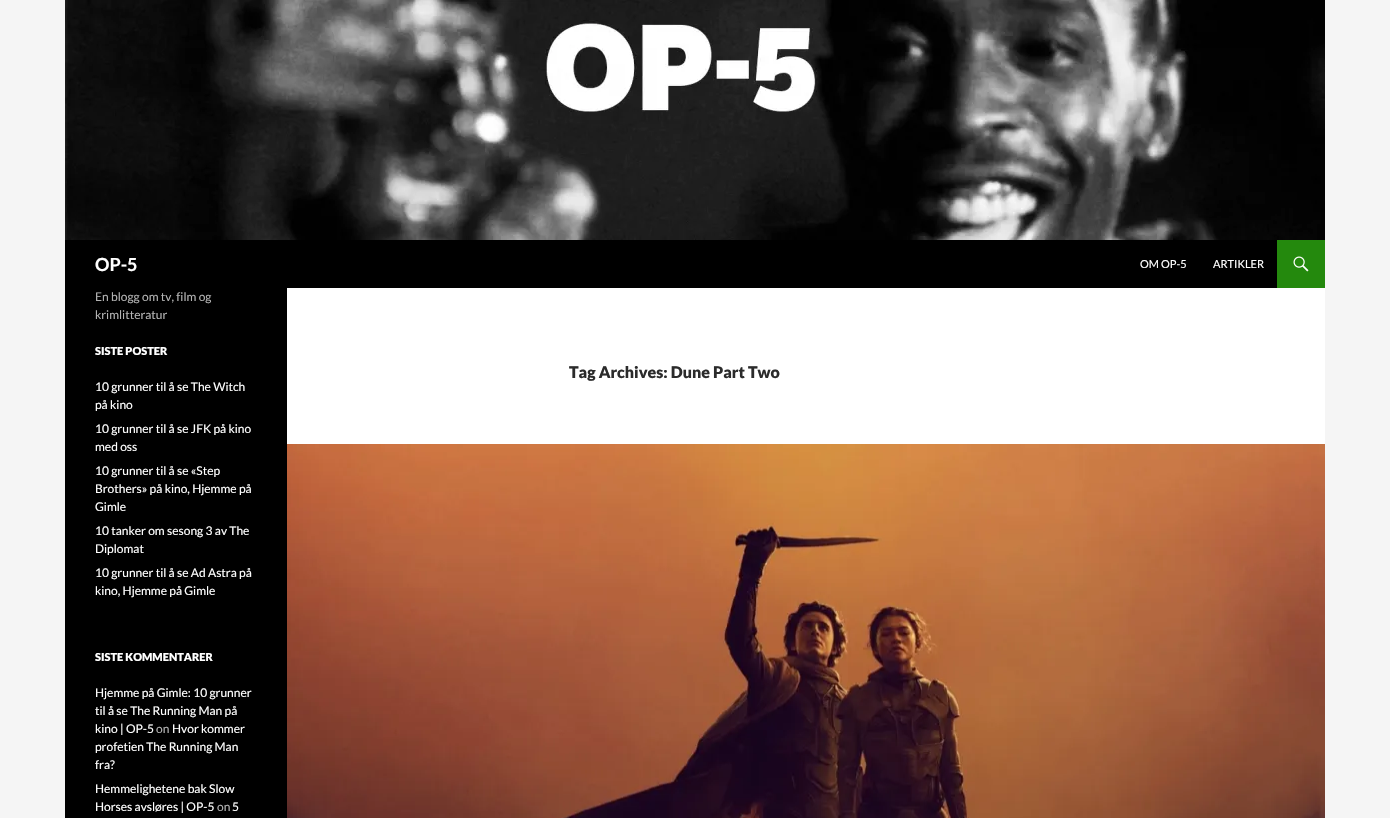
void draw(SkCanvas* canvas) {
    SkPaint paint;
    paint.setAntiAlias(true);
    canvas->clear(0xFFF5F5F5);
    paint.setColor(0xFFFFFFFF);
    canvas->drawRect(SkRect::MakeXYWH(287, 288, 1038, 156), paint);
    canvas->drawImageRect(SkImages::DeferredFromEncodedData(SkData::MakeFromFileName("img1.png")), SkRect::MakeXYWH(65, 0, 1260, 240), SkSamplingOptions());
    paint.setColor(0xFF000000);
    canvas->drawRect(SkRect::MakeXYWH(65, 240, 1212, 48), paint);
    SkFont font1(fontMgr->matchFamilyStyle("Lato", SkFontStyle::Bold()), 18);
    font1.setSubpixel(true);
    paint.setColor(0xFFFFFFFF);
    canvas->drawString("OP-5", 95, 271, font1, paint);
    SkFont font2(fontMgr->matchFamilyStyle("Lato", SkFontStyle::Normal()), 11);
    font2.setSubpixel(true);
    canvas->drawString("OM OP-5", 1140, 268, font2, paint);
    canvas->drawString("ARTIKLER", 1213, 268, font2, paint);
    paint.setColor(0xFF24890D);
    canvas->drawRect(SkRect::MakeXYWH(1277, 240, 48, 48), paint);
    canvas->drawImageRect(SkImages::DeferredFromEncodedData(SkData::MakeFromFileName("img2.png")), SkRect::MakeXYWH(1293, 256, 16, 16), SkSamplingOptions());
    paint.setColor(0xFF000000);
    canvas->drawRect(SkRect::MakeXYWH(65, 288, 222, 530), paint);
    SkFont font3(fontMgr->matchFamilyStyle("Lato", SkFontStyle::Normal()), 12);
    font3.setSubpixel(true);
    paint.setColor(0xFFB3B3B3);
    canvas->drawString("En blogg om tv, film og", 95, 301, font3, paint);
    canvas->drawString("krimlitteratur", 95, 319, font3, paint);
    SkFont font4(fontMgr->matchFamilyStyle("Lato", SkFontStyle(900, SkFontStyle::kNormal_Width, SkFontStyle::kUpright_Slant)), 11);
    font4.setSubpixel(true);
    paint.setColor(0xFFFFFFFF);
    canvas->drawString("SISTE POSTER", 95, 355, font4, paint);
    canvas->drawString("10 grunner til å se The Witch", 95, 391, font3, paint);
    canvas->drawString("på kino", 95, 409, font3, paint);
    canvas->drawString("10 grunner til å se JFK på kino", 95, 433, font3, paint);
    canvas->drawString("med oss", 95, 451, font3, paint);
    canvas->drawString("10 grunner til å se «Step", 95, 475, font3, paint);
    canvas->drawString("Brothers» på kino, Hjemme på", 95, 493, font3, paint);
    canvas->drawString("Gimle", 95, 511, font3, paint);
    canvas->drawString("10 tanker om sesong 3 av The", 95, 535, font3, paint);
    canvas->drawString("Diplomat", 95, 553, font3, paint);
    canvas->drawString("10 grunner til å se Ad Astra på", 95, 577, font3, paint);
    canvas->drawString("kino, Hjemme på Gimle", 95, 595, font3, paint);
    canvas->drawString("SISTE KOMMENTARER", 95, 661, font4, paint);
    canvas->drawString("Hjemme på Gimle: 10 grunner", 95, 697, font3, paint);
    canvas->drawString("til å se The Running Man på", 95, 715, font3, paint);
    canvas->drawString("kino | OP-5", 95, 733, font3, paint);
    paint.setColor(0xFFB3B3B3);
    canvas->drawString("on", 156, 733, font3, paint);
    paint.setColor(0xFFFFFFFF);
    canvas->drawString("Hvor kommer", 172, 733, font3, paint);
    canvas->drawString("profetien The Running Man", 95, 751, font3, paint);
    canvas->drawString("fra?", 95, 769, font3, paint);
    canvas->drawString("Hemmelighetene bak Slow", 95, 793, font3, paint);
    canvas->drawString("Horses avsløres | OP-5", 95, 811, font3, paint);
    paint.setColor(0xFFB3B3B3);
    canvas->drawString("on", 217, 811, font3, paint);
    paint.setColor(0xFFFFFFFF);
    canvas->drawString("5", 232, 811, font3, paint);
    SkFont font5(fontMgr->matchFamilyStyle("Lato", SkFontStyle(900, SkFontStyle::kNormal_Width, SkFontStyle::kUpright_Slant)), 16);
    font5.setSubpixel(true);
    paint.setColor(0xFF2B2B2B);
    canvas->drawString("Tag Archives: Dune Part Two", 569, 378, font5, paint);
    canvas->drawImageRect(SkImages::DeferredFromEncodedData(SkData::MakeFromFileName("img3.png")), SkRect::MakeXYWH(287, 444, 1038, 374), SkSamplingOptions());
}
